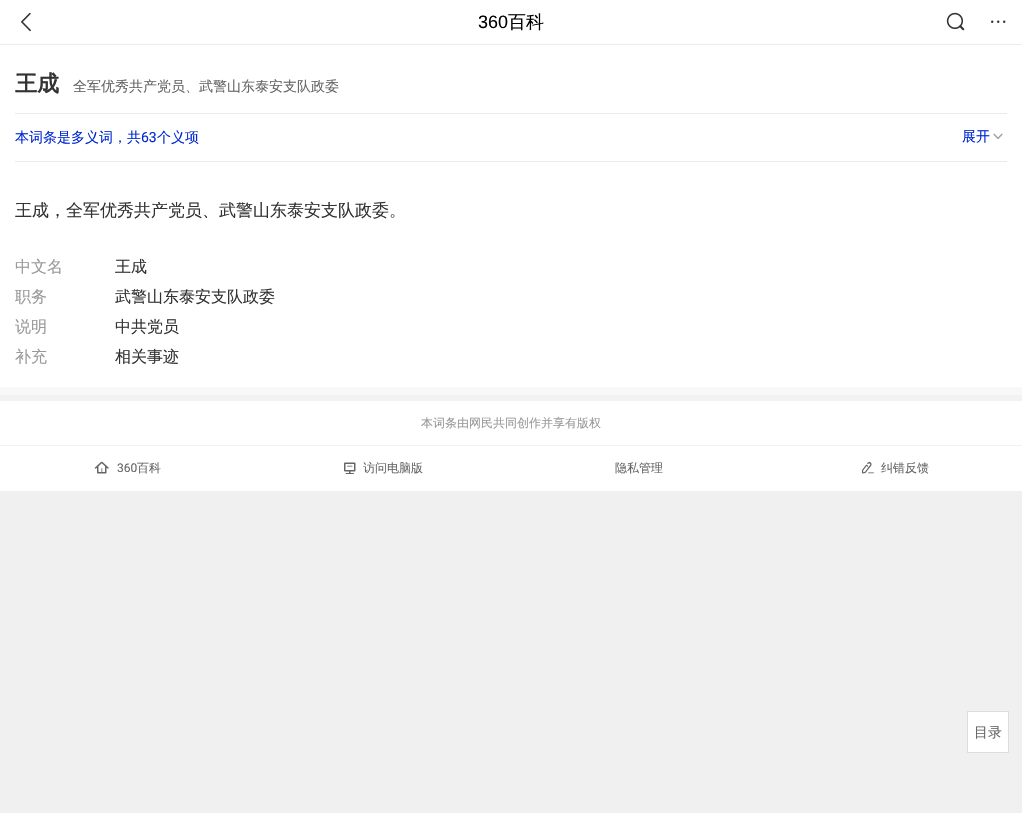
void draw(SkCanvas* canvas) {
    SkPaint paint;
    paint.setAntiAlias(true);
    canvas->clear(0xFFF0F0F0);
    paint.setColor(0xFFFFFFFF);
    canvas->drawRect(SkRect::MakeXYWH(0, 45, 1022, 446), paint);
    canvas->drawRect(SkRect::MakeXYWH(0, 0, 1022, 44), paint);
    paint.setColor(0xFFEDEDED);
    canvas->drawRect(SkRect::MakeXYWH(0, 44, 1022, 1), paint);
    canvas->drawImageRect(SkImages::DeferredFromEncodedData(SkData::MakeFromFileName("img1.png")), SkRect::MakeXYWH(21, 12, 10, 20), SkSamplingOptions());
    SkFont font1(fontMgr->matchFamilyStyle("Liberation Sans", SkFontStyle::Normal()), 18);
    font1.setSubpixel(true);
    paint.setColor(0xFF000000);
    canvas->drawString("360", 478, 28, font1, paint);
    SkFont font2(fontMgr->matchFamilyStyle("WenQuanYi Zen Hei", SkFontStyle(500, SkFontStyle::kNormal_Width, SkFontStyle::kUpright_Slant)), 18);
    font2.setSubpixel(true);
    canvas->drawString("百科", 508, 28, font2, paint);
    canvas->drawImageRect(SkImages::DeferredFromEncodedData(SkData::MakeFromFileName("img2.png")), SkRect::MakeXYWH(946, 12, 19, 19), SkSamplingOptions());
    paint.setColor(0xFF333333);
    canvas->drawCircle(992.2f, 21.8f, 1.2f, paint);
    canvas->drawCircle(998.2f, 21.8f, 1.2f, paint);
    canvas->drawCircle(1004.2f, 21.8f, 1.2f, paint);
    paint.setColor(0xFFFFFFFF);
    canvas->drawRect(SkRect::MakeXYWH(967.5f, 711.5f, 41, 41), paint);
    paint.setStyle(SkPaint::kStroke_Style);
    paint.setStrokeWidth(1);
    paint.setColor(0xFFDDDDDD);
    canvas->drawRect(SkRect::MakeXYWH(967.5f, 711.5f, 41, 41), paint);
    SkFont font3(fontMgr->matchFamilyStyle("WenQuanYi Zen Hei", SkFontStyle(500, SkFontStyle::kNormal_Width, SkFontStyle::kUpright_Slant)), 14);
    font3.setSubpixel(true);
    paint.setStyle(SkPaint::kFill_Style);
    paint.setColor(0xFF666666);
    canvas->drawString("目录", 974, 737, font3, paint);
    SkFont font4(fontMgr->matchFamilyStyle("WenQuanYi Zen Hei", SkFontStyle::Bold()), 22);
    font4.setSubpixel(true);
    paint.setColor(0xFF333333);
    canvas->drawString("王成", 15, 91, font4, paint);
    paint.setColor(0xFF666666);
    canvas->drawString("全军优秀共产党员、武警山东泰安支队政委", 73, 91, font3, paint);
    paint.setColor(0xFFEAEAEA);
    canvas->drawRect(SkRect::MakeXYWH(15, 113, 992, 1), paint);
    paint.setColor(0xFF0029D0);
    canvas->drawString("本词条是多义词，共", 15, 142, font3, paint);
    SkFont font5(fontMgr->matchFamilyStyle("Roboto", SkFontStyle::Normal()), 14);
    font5.setSubpixel(true);
    canvas->drawString("63", 141, 142, font5, paint);
    canvas->drawString("个义项", 157, 142, font3, paint);
    canvas->drawString("展开", 962, 141, font3, paint);
    canvas->drawImageRect(SkImages::DeferredFromEncodedData(SkData::MakeFromFileName("img3.png")), SkRect::MakeXYWH(993, 133, 10, 6), SkSamplingOptions());
    paint.setColor(0xFFEAEAEA);
    canvas->drawRect(SkRect::MakeXYWH(15, 161, 992, 1), paint);
    SkFont font6(fontMgr->matchFamilyStyle("WenQuanYi Zen Hei", SkFontStyle(500, SkFontStyle::kNormal_Width, SkFontStyle::kUpright_Slant)), 17);
    font6.setSubpixel(true);
    paint.setColor(0xFF333333);
    canvas->drawString("王成，全军优秀共产党员、武警山东泰安支队政委。", 15, 216, font6, paint);
    paint.setColor(0xFFF8F8F8);
    canvas->drawRect(SkRect::MakeXYWH(0, 387, 1022, 8), paint);
    SkFont font7(fontMgr->matchFamilyStyle("WenQuanYi Zen Hei", SkFontStyle(500, SkFontStyle::kNormal_Width, SkFontStyle::kUpright_Slant)), 16);
    font7.setSubpixel(true);
    paint.setColor(0xFF999999);
    canvas->drawString("中文名", 15, 272, font7, paint);
    paint.setColor(0xFF333333);
    canvas->drawString("王成", 115, 272, font7, paint);
    paint.setColor(0xFF999999);
    canvas->drawString("职务", 15, 302, font7, paint);
    paint.setColor(0xFF333333);
    canvas->drawString("武警山东泰安支队政委", 115, 302, font7, paint);
    paint.setColor(0xFF999999);
    canvas->drawString("说明", 15, 332, font7, paint);
    paint.setColor(0xFF333333);
    canvas->drawString("中共党员", 115, 332, font7, paint);
    paint.setColor(0xFF999999);
    canvas->drawString("补充", 15, 362, font7, paint);
    paint.setColor(0xFF333333);
    canvas->drawString("相关事迹", 115, 362, font7, paint);
    paint.setColor(0xFFF2F2F2);
    canvas->drawRect(SkRect::MakeXYWH(0, 395, 1022, 6), paint);
    SkFont font8(fontMgr->matchFamilyStyle("WenQuanYi Zen Hei", SkFontStyle(500, SkFontStyle::kNormal_Width, SkFontStyle::kUpright_Slant)), 12);
    font8.setSubpixel(true);
    paint.setColor(0xFF999999);
    canvas->drawString("本词条由网民共同创作并享有版权", 421, 427, font8, paint);
    paint.setColor(0xFFF2F2F2);
    canvas->drawRect(SkRect::MakeXYWH(0, 445, 1022, 1), paint);
    canvas->drawImageRect(SkImages::DeferredFromEncodedData(SkData::MakeFromFileName("img4.png")), SkRect::MakeXYWH(94, 461, 15, 13), SkSamplingOptions());
    SkFont font9(fontMgr->matchFamilyStyle("Roboto", SkFontStyle::Normal()), 12);
    font9.setSubpixel(true);
    paint.setColor(0xFF666666);
    canvas->drawString("360", 117, 472, font9, paint);
    canvas->drawString("百科", 137, 472, font8, paint);
    canvas->drawImageRect(SkImages::DeferredFromEncodedData(SkData::MakeFromFileName("img5.png")), SkRect::MakeXYWH(344, 462, 12, 12), SkSamplingOptions());
    canvas->drawString("访问电脑版", 363, 472, font8, paint);
    canvas->drawString("隐私管理", 615, 472, font8, paint);
    canvas->drawImageRect(SkImages::DeferredFromEncodedData(SkData::MakeFromFileName("img6.png")), SkRect::MakeXYWH(861, 461, 13, 13), SkSamplingOptions());
    canvas->drawString("纠错反馈", 881, 472, font8, paint);
}
